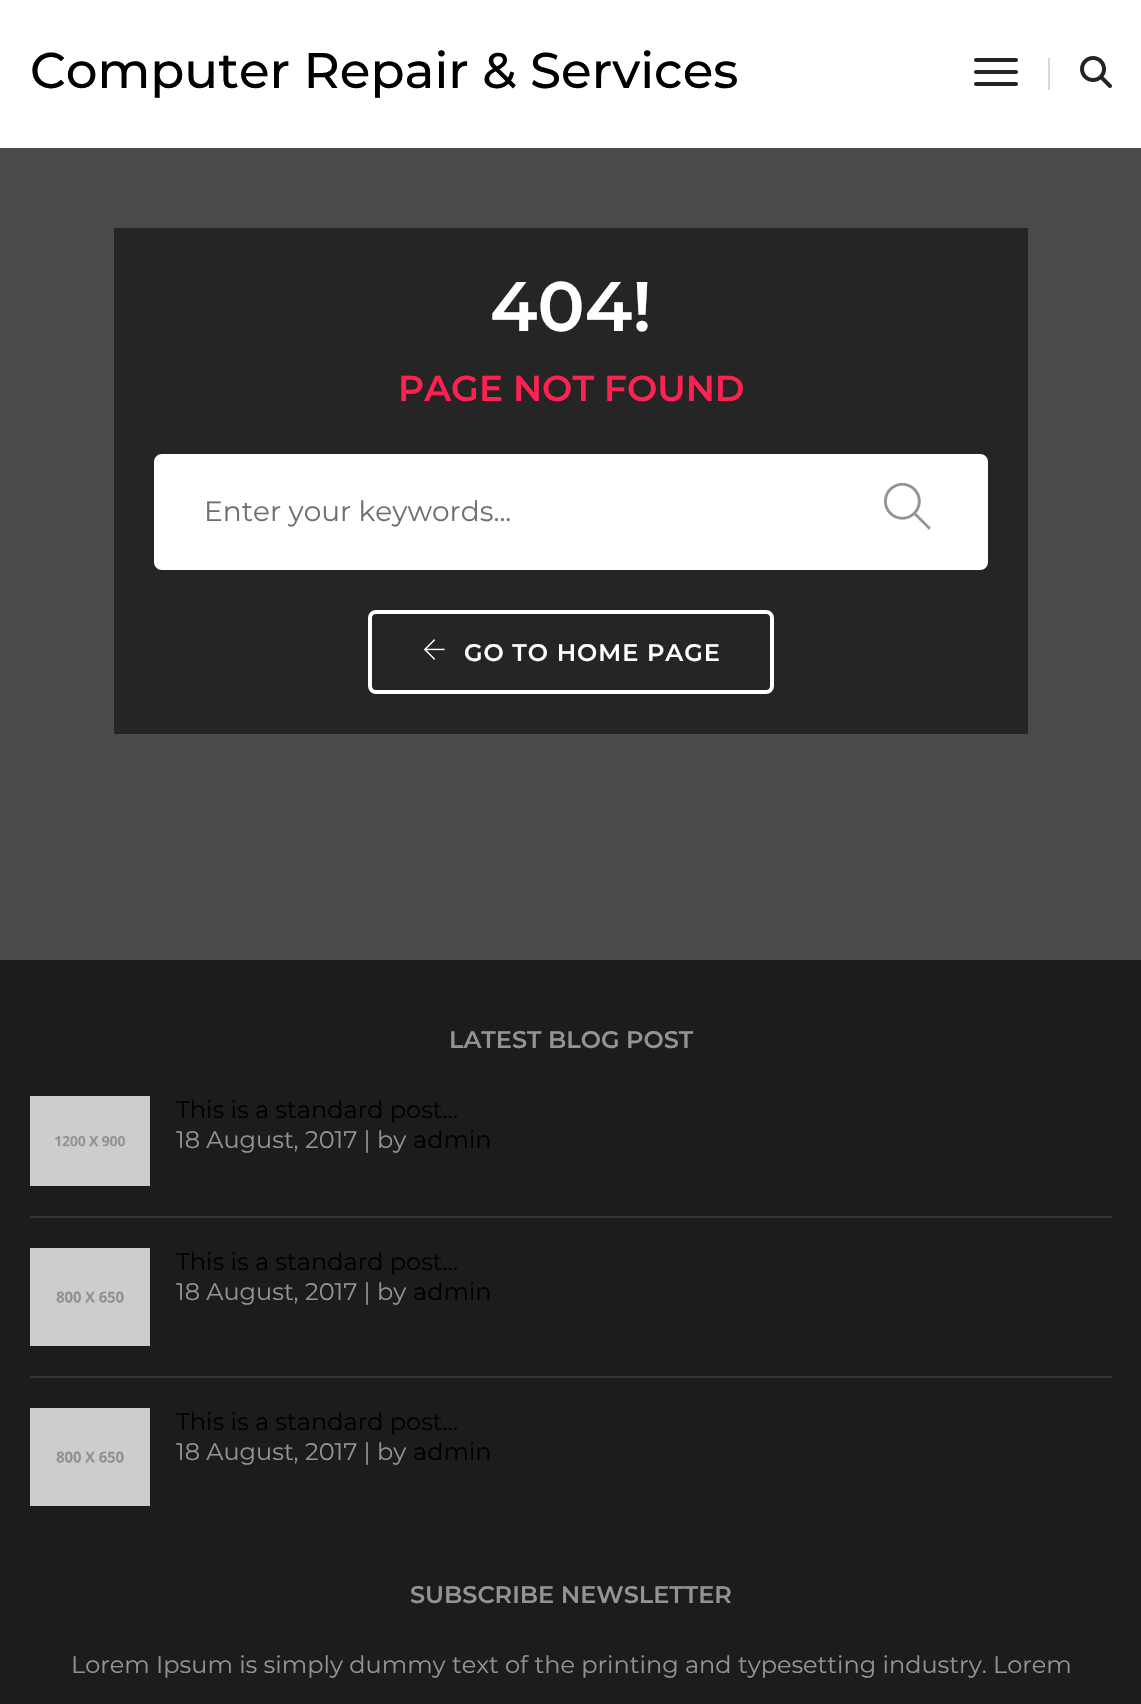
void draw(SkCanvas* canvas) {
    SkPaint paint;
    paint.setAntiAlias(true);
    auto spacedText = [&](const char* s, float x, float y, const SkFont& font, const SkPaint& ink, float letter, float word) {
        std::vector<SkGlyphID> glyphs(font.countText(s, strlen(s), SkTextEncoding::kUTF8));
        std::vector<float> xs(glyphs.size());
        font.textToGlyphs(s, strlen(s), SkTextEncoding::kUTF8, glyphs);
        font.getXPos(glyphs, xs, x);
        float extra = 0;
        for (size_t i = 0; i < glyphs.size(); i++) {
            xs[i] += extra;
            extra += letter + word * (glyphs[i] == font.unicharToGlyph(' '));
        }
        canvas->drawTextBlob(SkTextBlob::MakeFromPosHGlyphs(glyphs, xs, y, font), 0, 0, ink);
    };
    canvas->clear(0xFF1C1C1C);
    paint.setColor(0xFFFFFFFF);
    canvas->drawRect(SkRect::MakeXYWH(0, 0, 1141, 148), paint);
    SkFont font1(fontMgr->matchFamilyStyle("Montserrat", SkFontStyle(500, SkFontStyle::kNormal_Width, SkFontStyle::kUpright_Slant)), 50);
    font1.setSubpixel(true);
    paint.setColor(0xFF000000);
    canvas->drawString("Computer Repair & Services", 30, 88, font1, paint);
    paint.setColor(0xFF232323);
    canvas->drawRoundRect(SkRect::MakeXYWH(974, 58, 44, 4), 2, 2, paint);
    canvas->drawRoundRect(SkRect::MakeXYWH(974, 70, 44, 4), 2, 2, paint);
    canvas->drawRoundRect(SkRect::MakeXYWH(974, 82, 44, 4), 2, 2, paint);
    paint.setColor(0xFFD9D9D9);
    canvas->drawRect(SkRect::MakeXYWH(1048, 58, 2, 32), paint);
    canvas->drawImageRect(SkImages::DeferredFromEncodedData(SkData::MakeFromFileName("img1.png")), SkRect::MakeXYWH(1080, 56, 32, 32), SkSamplingOptions());
    paint.setColor(0xFF4A4A4A);
    canvas->drawRect(SkRect::MakeXYWH(0, 148, 1141, 812), paint);
    paint.setColor(0xFF252525);
    canvas->drawRect(SkRect::MakeXYWH(114, 228, 914, 506), paint);
    SkFont font2(fontMgr->matchFamilyStyle("Montserrat", SkFontStyle(600, SkFontStyle::kNormal_Width, SkFontStyle::kUpright_Slant)), 70);
    font2.setSubpixel(true);
    paint.setColor(0xFFFFFFFF);
    canvas->drawString("404!", 490, 331, font2, paint);
    SkFont font3(fontMgr->matchFamilyStyle("Montserrat", SkFontStyle(600, SkFontStyle::kNormal_Width, SkFontStyle::kUpright_Slant)), 36);
    font3.setSubpixel(true);
    paint.setColor(0xFFFF214F);
    canvas->drawString("PAGE NOT FOUND", 398, 401, font3, paint);
    paint.setColor(0xFFFFFFFF);
    canvas->drawPath(SkPathBuilder().moveTo(162, 454).lineTo(832, 454).lineTo(832, 570).lineTo(162, 570).cubicTo(157.5f, 570, 154, 566.5f, 154, 562).lineTo(154, 462).cubicTo(154, 457.5f, 157.5f, 454, 162, 454).close().detach(), paint);
    SkFont font4(fontMgr->matchFamilyStyle("Montserrat", SkFontStyle::Normal()), 28);
    font4.setSubpixel(true);
    paint.setColor(0xFF6F6F6F);
    canvas->drawString("Enter your keywords...", 204, 521, font4, paint);
    paint.setColor(0xFFFFFFFF);
    canvas->drawPath(SkPathBuilder().moveTo(830, 454).lineTo(980, 454).cubicTo(984.5f, 454, 988, 457.5f, 988, 462).lineTo(988, 562).cubicTo(988, 566.5f, 984.5f, 570, 980, 570).lineTo(830, 570).close().detach(), paint);
    canvas->drawImageRect(SkImages::DeferredFromEncodedData(SkData::MakeFromFileName("img2.png")), SkRect::MakeXYWH(884, 482, 47, 48), SkSamplingOptions());
    paint.setStyle(SkPaint::kStroke_Style);
    paint.setStrokeWidth(4);
    canvas->drawRoundRect(SkRect::MakeXYWH(370, 612, 402, 80), 6, 6, paint);
    canvas->drawImageRect(SkImages::DeferredFromEncodedData(SkData::MakeFromFileName("img3.png")), SkRect::MakeXYWH(423, 639, 22, 21), SkSamplingOptions());
    SkFont font5(fontMgr->matchFamilyStyle("Montserrat", SkFontStyle(600, SkFontStyle::kNormal_Width, SkFontStyle::kUpright_Slant)), 24);
    font5.setSubpixel(true);
    paint.setStyle(SkPaint::kFill_Style);
    spacedText("GO TO HOME PAGE", 464, 661, font5, paint, 1, 0);
    paint.setColor(0xFF939393);
    canvas->drawString("LATEST BLOG POST", 449, 1048, font5, paint);
    paint.setColor(0xFF363636);
    canvas->drawRect(SkRect::MakeXYWH(30, 1216, 1082, 2), paint);
    canvas->drawImageRect(SkImages::DeferredFromEncodedData(SkData::MakeFromFileName("img4.png")), SkRect::MakeXYWH(30, 1096, 120, 90), SkSamplingOptions());
    SkFont font6(fontMgr->matchFamilyStyle("Montserrat", SkFontStyle::Normal()), 24);
    font6.setSubpixel(true);
    paint.setColor(0xFF000000);
    canvas->drawString("This is a standard post…", 176, 1118, font6, paint);
    paint.setColor(0xFF939393);
    canvas->drawString("18 August, 2017 | by", 176, 1148, font6, paint);
    paint.setColor(0xFF000000);
    canvas->drawString("admin", 413, 1148, font6, paint);
    paint.setColor(0xFF363636);
    canvas->drawRect(SkRect::MakeXYWH(30, 1376, 1082, 2), paint);
    canvas->drawImageRect(SkImages::DeferredFromEncodedData(SkData::MakeFromFileName("img5.png")), SkRect::MakeXYWH(30, 1248, 120, 98), SkSamplingOptions());
    paint.setColor(0xFF000000);
    canvas->drawString("This is a standard post…", 176, 1270, font6, paint);
    paint.setColor(0xFF939393);
    canvas->drawString("18 August, 2017 | by", 176, 1300, font6, paint);
    paint.setColor(0xFF000000);
    canvas->drawString("admin", 413, 1300, font6, paint);
    canvas->drawImageRect(SkImages::DeferredFromEncodedData(SkData::MakeFromFileName("img5.png")), SkRect::MakeXYWH(30, 1408, 120, 98), SkSamplingOptions());
    canvas->drawString("This is a standard post…", 176, 1430, font6, paint);
    paint.setColor(0xFF939393);
    canvas->drawString("18 August, 2017 | by", 176, 1460, font6, paint);
    paint.setColor(0xFF000000);
    canvas->drawString("admin", 413, 1460, font6, paint);
    paint.setColor(0xFF939393);
    canvas->drawString("SUBSCRIBE NEWSLETTER", 410, 1603, font5, paint);
    canvas->drawString("Lorem Ipsum is simply dummy text of the printing and typesetting industry. Lorem", 71, 1673, font6, paint);
}
